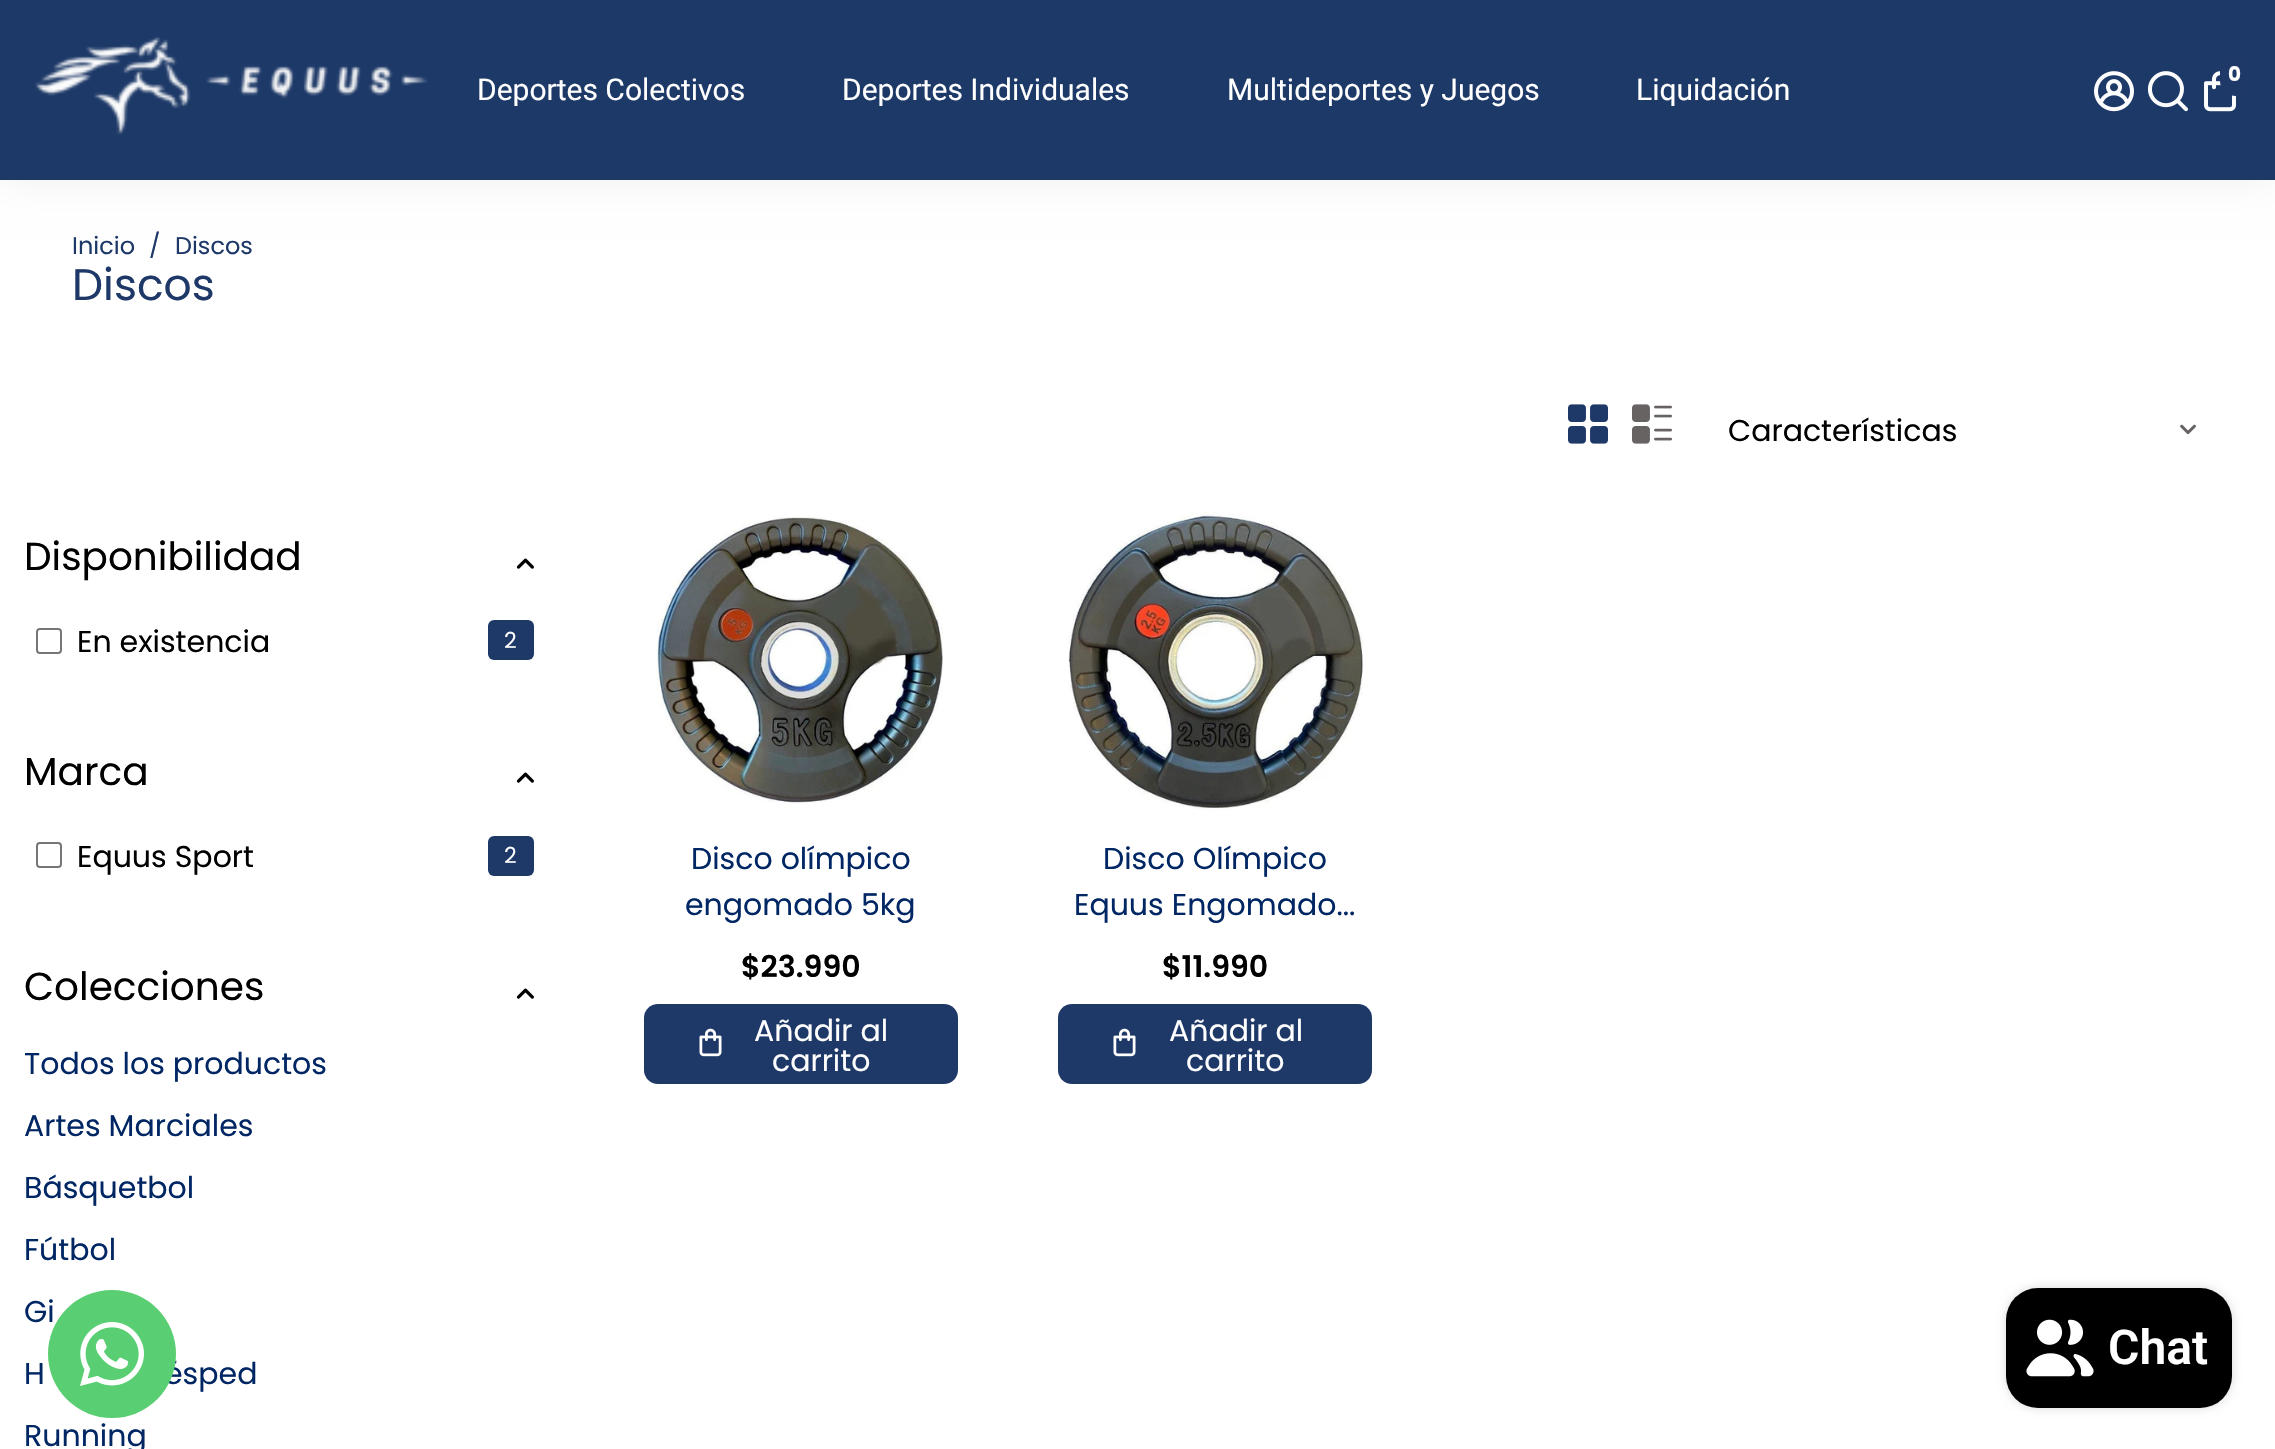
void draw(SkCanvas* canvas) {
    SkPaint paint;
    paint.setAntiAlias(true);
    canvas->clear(0xFFFFFFFF);
    paint.setColor(0x0F000000);
    paint.setMaskFilter(SkMaskFilter::MakeBlur(kNormal_SkBlurStyle, 20));
    canvas->drawRect(SkRect::MakeXYWH(0, 0, 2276, 180), paint);
    paint.setMaskFilter(nullptr);
    paint.setColor(0xFF1D3968);
    canvas->drawRect(SkRect::MakeXYWH(0, 0, 2275, 180), paint);
    canvas->drawImageRect(SkImages::DeferredFromEncodedData(SkData::MakeFromFileName("img1.png")), SkRect::MakeXYWH(34, 37, 394, 98), SkSamplingOptions());
    canvas->drawImageRect(SkImages::DeferredFromEncodedData(SkData::MakeFromFileName("img2.png")), SkRect::MakeXYWH(2094, 71, 40, 41), SkSamplingOptions());
    canvas->drawImageRect(SkImages::DeferredFromEncodedData(SkData::MakeFromFileName("img3.png")), SkRect::MakeXYWH(2147, 71, 41, 41), SkSamplingOptions());
    canvas->drawImageRect(SkImages::DeferredFromEncodedData(SkData::MakeFromFileName("img4.png")), SkRect::MakeXYWH(2204, 71, 32, 41), SkSamplingOptions());
    paint.setColor(0xFF1E3868);
    canvas->drawRoundRect(SkRect::MakeXYWH(2220, 56, 30, 40), 15, 15, paint);
    SkFont font1(fontMgr->matchFamilyStyle("Poppins", SkFontStyle::Bold()), 20);
    font1.setSubpixel(true);
    paint.setColor(0xFFFFFFFF);
    canvas->drawString("0", 2228, 81, font1, paint);
    SkFont font2(fontMgr->matchFamilyStyle("Roboto", SkFontStyle::Normal()), 30);
    font2.setSubpixel(true);
    canvas->drawString("Deportes Colectivos", 477, 100, font2, paint);
    canvas->drawString("Deportes Individuales", 842, 100, font2, paint);
    canvas->drawString("Multideportes y Juegos", 1227, 100, font2, paint);
    canvas->drawString("Liquidación", 1636, 100, font2, paint);
    SkFont font3(fontMgr->matchFamilyStyle("Poppins", SkFontStyle::Normal()), 24);
    font3.setSubpixel(true);
    paint.setColor(0xFF1E3868);
    canvas->drawString("Inicio", 72, 254, font3, paint);
    canvas->drawString("/", 149, 254, font3, paint);
    canvas->drawString("Discos", 175, 254, font3, paint);
    SkFont font4(fontMgr->matchFamilyStyle("Poppins", SkFontStyle::Normal()), 44);
    font4.setSubpixel(true);
    canvas->drawString("Discos", 72, 300, font4, paint);
    canvas->drawImageRect(SkImages::DeferredFromEncodedData(SkData::MakeFromFileName("img5.png")), SkRect::MakeXYWH(1568, 404, 40, 40), SkSamplingOptions());
    canvas->drawImageRect(SkImages::DeferredFromEncodedData(SkData::MakeFromFileName("img6.png")), SkRect::MakeXYWH(1632, 404, 40, 40), SkSamplingOptions());
    SkFont font5(fontMgr->matchFamilyStyle("Poppins", SkFontStyle::Normal()), 30);
    font5.setSubpixel(true);
    paint.setColor(0xFF000000);
    canvas->drawString("Características", 1728, 441, font5, paint);
    canvas->drawImageRect(SkImages::DeferredFromEncodedData(SkData::MakeFromFileName("img7.png")), SkRect::MakeXYWH(2180, 424, 16, 11), SkSamplingOptions());
    SkFont font6(fontMgr->matchFamilyStyle("Poppins", SkFontStyle::Normal()), 39);
    font6.setSubpixel(true);
    canvas->drawString("Disponibilidad", 24, 570, font6, paint);
    canvas->drawImageRect(SkImages::DeferredFromEncodedData(SkData::MakeFromFileName("img8.png")), SkRect::MakeXYWH(516, 558, 18, 11), SkSamplingOptions());
    paint.setStyle(SkPaint::kStroke_Style);
    paint.setStrokeWidth(2);
    paint.setColor(0xFF767676);
    canvas->drawRoundRect(SkRect::MakeXYWH(37, 629, 24, 24), 3, 3, paint);
    paint.setStyle(SkPaint::kFill_Style);
    paint.setColor(0xFF000000);
    canvas->drawString("En existencia", 77, 652, font5, paint);
    paint.setColor(0xFF1E3868);
    canvas->drawRoundRect(SkRect::MakeXYWH(488, 620, 46, 40), 6, 6, paint);
    SkFont font7(fontMgr->matchFamilyStyle("Poppins", SkFontStyle::Normal()), 22);
    font7.setSubpixel(true);
    paint.setColor(0xFFFFFFFF);
    canvas->drawString("2", 504, 648, font7, paint);
    paint.setColor(0xFF000000);
    canvas->drawString("Marca", 24, 785, font6, paint);
    canvas->drawImageRect(SkImages::DeferredFromEncodedData(SkData::MakeFromFileName("img8.png")), SkRect::MakeXYWH(516, 772, 18, 11), SkSamplingOptions());
    paint.setStyle(SkPaint::kStroke_Style);
    paint.setColor(0xFF767676);
    canvas->drawRoundRect(SkRect::MakeXYWH(37, 843, 24, 24), 3, 3, paint);
    paint.setStyle(SkPaint::kFill_Style);
    paint.setColor(0xFF000000);
    canvas->drawString("Equus Sport", 77, 867, font5, paint);
    paint.setColor(0xFF1E3868);
    canvas->drawRoundRect(SkRect::MakeXYWH(488, 836, 46, 40), 6, 6, paint);
    paint.setColor(0xFFFFFFFF);
    canvas->drawString("2", 504, 863, font7, paint);
    paint.setColor(0xFF000000);
    canvas->drawString("Colecciones", 24, 1000, font6, paint);
    canvas->drawImageRect(SkImages::DeferredFromEncodedData(SkData::MakeFromFileName("img8.png")), SkRect::MakeXYWH(516, 988, 18, 11), SkSamplingOptions());
    paint.setColor(0xFF002664);
    canvas->drawString("Todos los productos", 24, 1074, font5, paint);
    canvas->drawString("Artes Marciales", 24, 1136, font5, paint);
    canvas->drawString("Básquetbol", 24, 1198, font5, paint);
    canvas->drawString("Fútbol", 24, 1260, font5, paint);
    canvas->drawString("Gi", 24, 1322, font5, paint);
    canvas->drawString("H", 24, 1384, font5, paint);
    canvas->drawString("ésped", 164, 1384, font5, paint);
    canvas->drawString("Running", 24, 1446, font5, paint);
    canvas->drawImageRect(SkImages::DeferredFromEncodedData(SkData::MakeFromFileName("img9.png")), SkRect::MakeXYWH(655, 517, 288, 287), SkSamplingOptions());
    canvas->drawString("Disco olímpico", 691, 869, font5, paint);
    canvas->drawString("engomado 5kg", 685, 915, font5, paint);
    SkFont font8(fontMgr->matchFamilyStyle("Poppins", SkFontStyle(600, SkFontStyle::kNormal_Width, SkFontStyle::kUpright_Slant)), 30);
    font8.setSubpixel(true);
    paint.setColor(0xFF000000);
    canvas->drawString("$23.990", 741, 977, font8, paint);
    paint.setColor(0xFF1E3868);
    canvas->drawRoundRect(SkRect::MakeXYWH(644, 1004, 314, 80), 14, 14, paint);
    canvas->drawImageRect(SkImages::DeferredFromEncodedData(SkData::MakeFromFileName("img10.png")), SkRect::MakeXYWH(699, 1028, 23, 29), SkSamplingOptions());
    paint.setColor(0xFFFFFFFF);
    canvas->drawString("Añadir al", 754, 1041, font5, paint);
    canvas->drawString("carrito", 772, 1071, font5, paint);
    canvas->drawImageRect(SkImages::DeferredFromEncodedData(SkData::MakeFromFileName("img11.png")), SkRect::MakeXYWH(1068, 512, 298, 298), SkSamplingOptions());
    paint.setColor(0xFF002664);
    canvas->drawString("Disco Olímpico", 1103, 869, font5, paint);
    canvas->drawString("Equus Engomado...", 1074, 915, font5, paint);
    paint.setColor(0xFF000000);
    canvas->drawString("$11.990", 1162, 977, font8, paint);
    paint.setColor(0xFF1E3868);
    canvas->drawRoundRect(SkRect::MakeXYWH(1058, 1004, 314, 80), 14, 14, paint);
    canvas->drawImageRect(SkImages::DeferredFromEncodedData(SkData::MakeFromFileName("img10.png")), SkRect::MakeXYWH(1113, 1028, 23, 29), SkSamplingOptions());
    paint.setColor(0xFFFFFFFF);
    canvas->drawString("Añadir al", 1169, 1041, font5, paint);
    canvas->drawString("carrito", 1186, 1071, font5, paint);
    paint.setColor(0xFF59CE72);
    canvas->drawCircle(112, 1354, 64, paint);
    canvas->drawImageRect(SkImages::DeferredFromEncodedData(SkData::MakeFromFileName("img12.png")), SkRect::MakeXYWH(80, 1322, 64, 64), SkSamplingOptions());
    paint.setColor(0x26000000);
    paint.setMaskFilter(SkMaskFilter::MakeBlur(kNormal_SkBlurStyle, 5));
    canvas->drawRoundRect(SkRect::MakeXYWH(2006, 1288, 226, 120), 32, 32, paint);
    paint.setMaskFilter(nullptr);
    paint.setColor(0xFF000000);
    canvas->drawRoundRect(SkRect::MakeXYWH(2006, 1288, 226, 120), 32, 32, paint);
    canvas->drawImageRect(SkImages::DeferredFromEncodedData(SkData::MakeFromFileName("img13.png")), SkRect::MakeXYWH(2026, 1319, 68, 58), SkSamplingOptions());
    SkFont font9(fontMgr->matchFamilyStyle("Roboto", SkFontStyle(600, SkFontStyle::kNormal_Width, SkFontStyle::kUpright_Slant)), 48);
    font9.setSubpixel(true);
    paint.setColor(0xFFFFFFFF);
    canvas->drawString("Chat", 2108, 1364, font9, paint);
}
